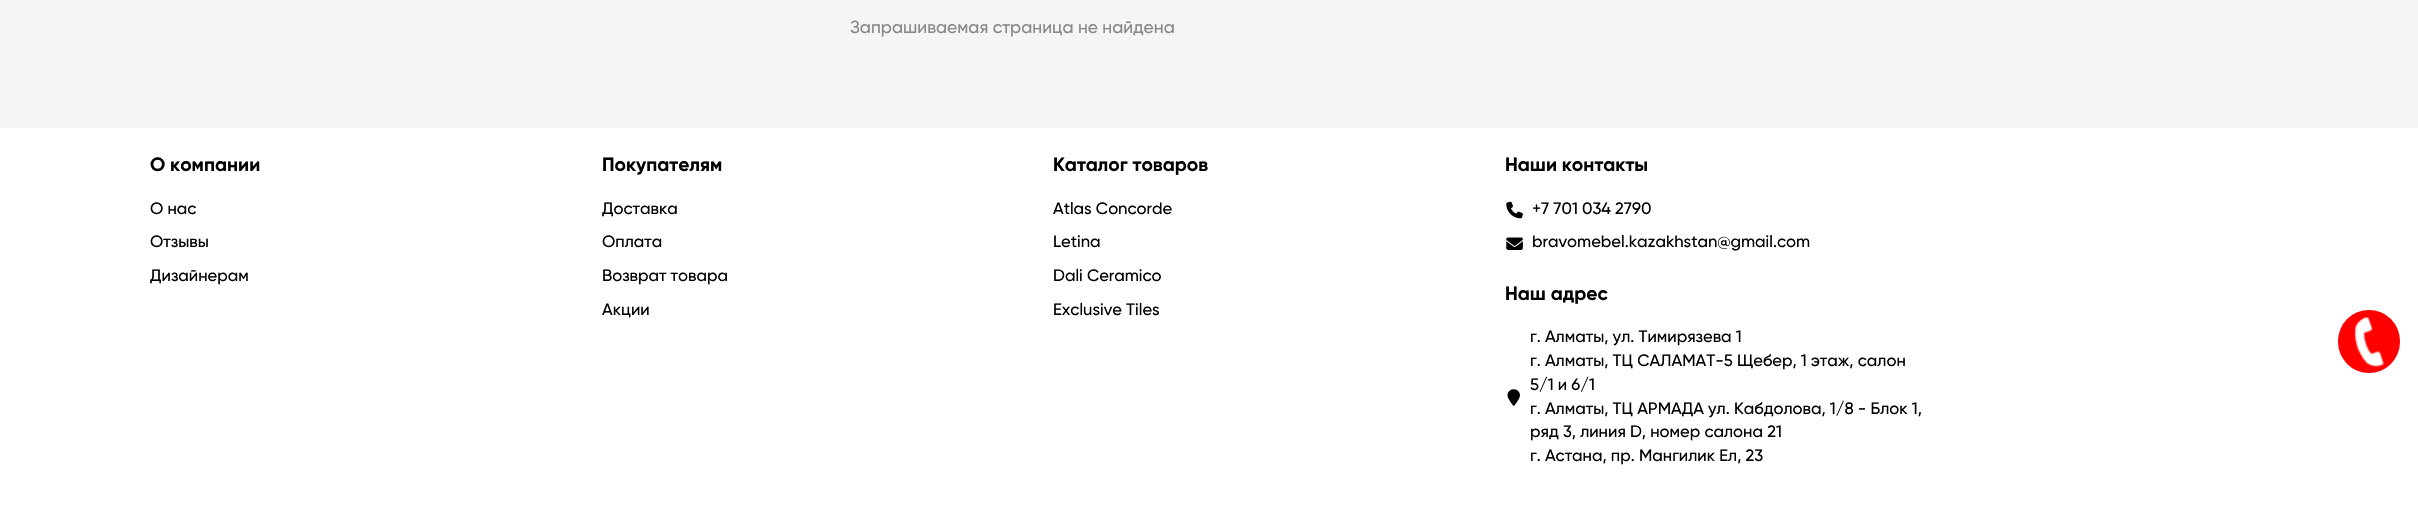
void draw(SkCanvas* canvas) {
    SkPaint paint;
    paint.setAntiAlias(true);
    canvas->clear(0xFFF5F5F5);
    SkFont font1(fontMgr->matchFamilyStyle("Gilroy", SkFontStyle(500, SkFontStyle::kNormal_Width, SkFontStyle::kUpright_Slant)), 17.5f);
    font1.setSubpixel(true);
    paint.setColor(0xFF888888);
    canvas->drawString("Запрашиваемая страница не найдена", 850, 33, font1, paint);
    paint.setColor(0xFFFFFFFF);
    canvas->drawRect(SkRect::MakeXYWH(0, 128, 2418, 382), paint);
    SkFont font2(fontMgr->matchFamilyStyle("Gilroy", SkFontStyle::Bold()), 19.25f);
    font2.setSubpixel(true);
    paint.setColor(0xFF000000);
    canvas->drawString("О компании", 150, 171, font2, paint);
    SkFont font3(fontMgr->matchFamilyStyle("Gilroy", SkFontStyle(500, SkFontStyle::kNormal_Width, SkFontStyle::kUpright_Slant)), 16.6f);
    font3.setSubpixel(true);
    canvas->drawString("О нас", 150, 214, font3, paint);
    canvas->drawString("Отзывы", 150, 247, font3, paint);
    canvas->drawString("Дизайнерам", 150, 281, font3, paint);
    canvas->drawString("Покупателям", 602, 171, font2, paint);
    canvas->drawString("Доставка", 602, 214, font3, paint);
    canvas->drawString("Оплата", 602, 247, font3, paint);
    canvas->drawString("Возврат товара", 602, 281, font3, paint);
    canvas->drawString("Акции", 602, 315, font3, paint);
    canvas->drawString("Каталог товаров", 1053, 171, font2, paint);
    canvas->drawString("Atlas Concorde", 1053, 214, font3, paint);
    canvas->drawString("Letina", 1053, 247, font3, paint);
    canvas->drawString("Dali Ceramico", 1053, 281, font3, paint);
    canvas->drawString("Exclusive Tiles", 1053, 315, font3, paint);
    canvas->drawString("Наши контакты", 1505, 171, font2, paint);
    canvas->drawImageRect(SkImages::DeferredFromEncodedData(SkData::MakeFromFileName("img1.png")), SkRect::MakeXYWH(1506, 201, 17, 18), SkSamplingOptions());
    canvas->drawString("+7 701 034 2790", 1532, 214, font3, paint);
    canvas->drawImageRect(SkImages::DeferredFromEncodedData(SkData::MakeFromFileName("img2.png")), SkRect::MakeXYWH(1506, 237, 17, 13), SkSamplingOptions());
    canvas->drawString("bravomebel.kazakhstan@gmail.com", 1532, 247, font3, paint);
    canvas->drawString("Наш адрес", 1505, 300, font2, paint);
    canvas->drawImageRect(SkImages::DeferredFromEncodedData(SkData::MakeFromFileName("img3.png")), SkRect::MakeXYWH(1507, 389, 13, 17), SkSamplingOptions());
    canvas->drawString("г. Алматы, ул. Тимирязева 1", 1530, 342, font3, paint);
    canvas->drawString("г. Алматы, ТЦ САЛАМАТ-5 Щебер, 1 этаж, салон", 1530, 366, font3, paint);
    canvas->drawString("5/1 и 6/1", 1530, 390, font3, paint);
    canvas->drawString("г. Алматы, ТЦ АРМАДА ул. Кабдолова, 1/8 - Блок 1,", 1530, 414, font3, paint);
    canvas->drawString("ряд 3, линия D, номер салона 21", 1530, 437, font3, paint);
    canvas->drawString("г. Астана, пр. Мангилик Ел, 23", 1530, 461, font3, paint);
    paint.setColor(0xFFFF0000);
    canvas->drawRoundRect(SkRect::MakeXYWH(2338, 310, 62, 63), 31, 31, paint);
    canvas->drawImageRect(SkImages::DeferredFromEncodedData(SkData::MakeFromFileName("img4.png")), SkRect::MakeXYWH(2354, 317, 30, 50), SkSamplingOptions());
}
